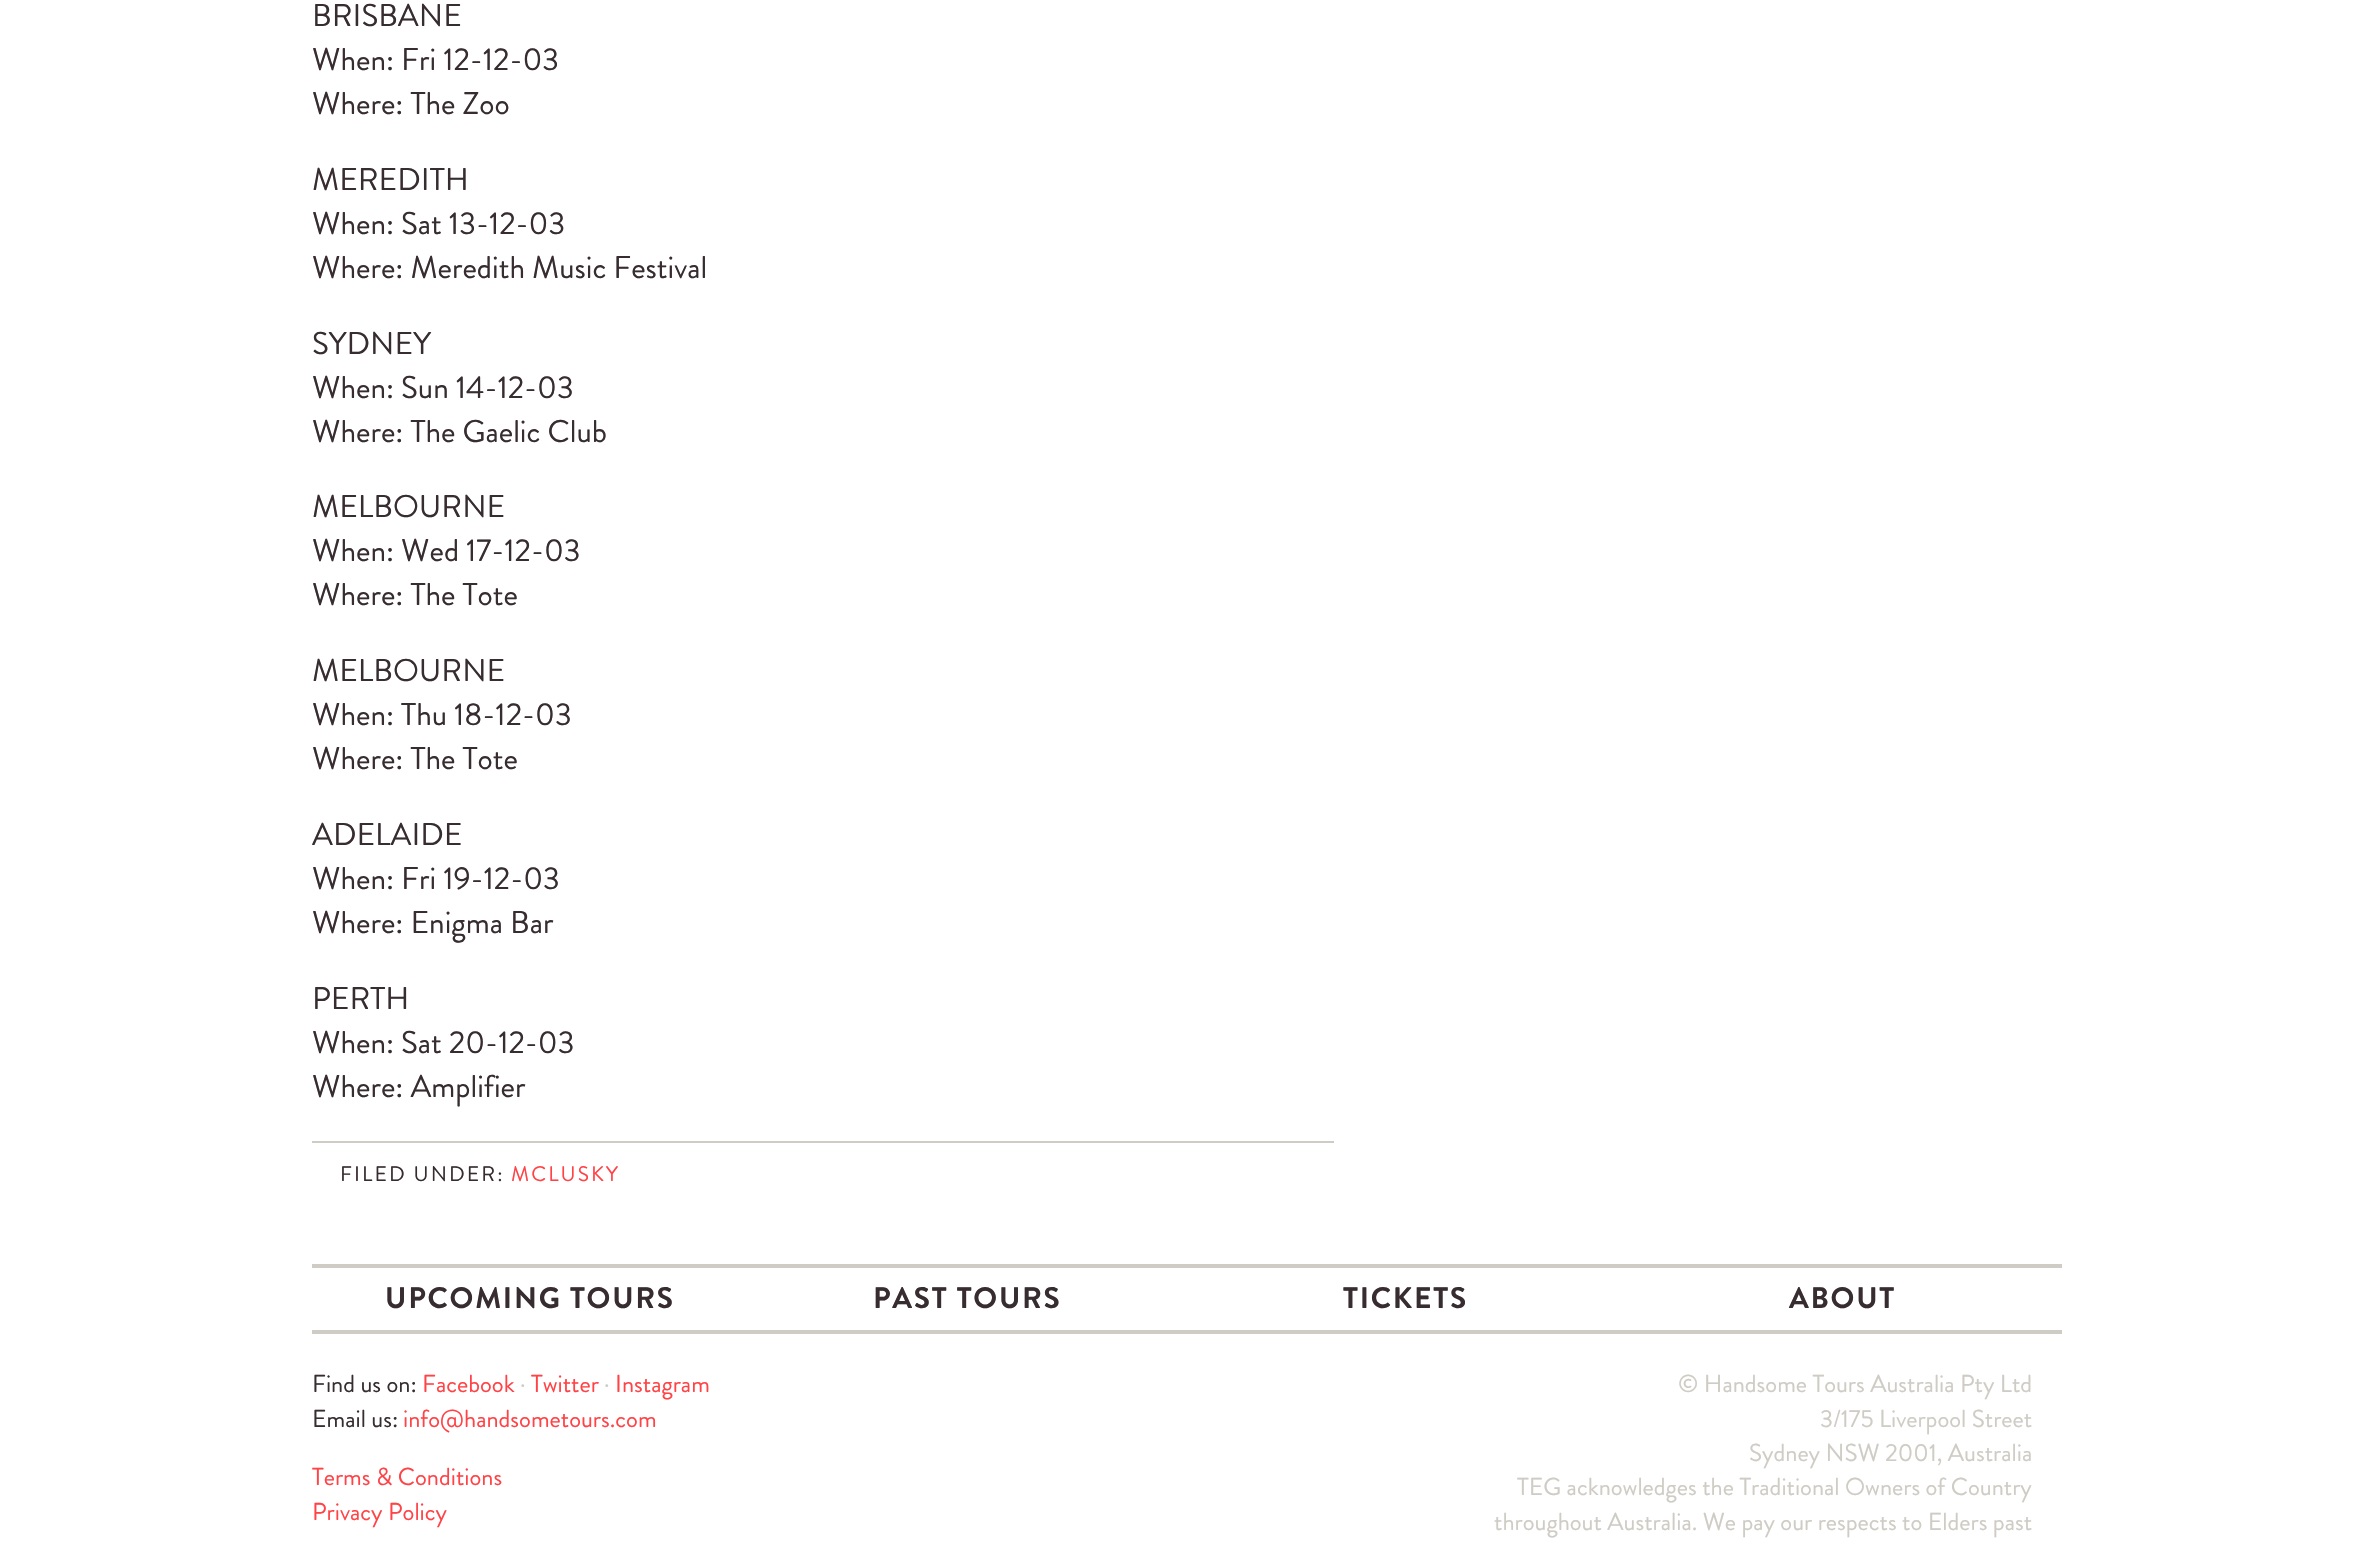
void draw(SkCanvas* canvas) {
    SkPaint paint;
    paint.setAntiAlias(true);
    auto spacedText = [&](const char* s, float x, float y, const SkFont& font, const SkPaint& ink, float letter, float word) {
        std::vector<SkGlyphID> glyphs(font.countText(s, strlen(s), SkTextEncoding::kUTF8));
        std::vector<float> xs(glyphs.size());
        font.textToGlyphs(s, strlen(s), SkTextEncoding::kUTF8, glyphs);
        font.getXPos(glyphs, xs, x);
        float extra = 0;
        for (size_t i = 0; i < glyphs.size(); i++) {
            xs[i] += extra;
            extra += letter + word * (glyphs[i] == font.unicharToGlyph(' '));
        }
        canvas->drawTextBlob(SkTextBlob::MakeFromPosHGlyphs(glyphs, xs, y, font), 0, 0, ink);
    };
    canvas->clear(0xFFFFFFFF);
    SkFont font1(fontMgr->matchFamilyStyle("Brandon Grotesque", SkFontStyle::Normal()), 31.5f);
    font1.setSubpixel(true);
    paint.setColor(0xFF372C30);
    canvas->drawString("BRISBANE", 312, 26, font1, paint);
    canvas->drawString("When: Fri 12-12-03", 312, 70, font1, paint);
    canvas->drawString("Where: The Zoo", 312, 114, font1, paint);
    canvas->drawString("MEREDITH", 312, 190, font1, paint);
    canvas->drawString("When: Sat 13-12-03", 312, 234, font1, paint);
    canvas->drawString("Where: Meredith Music Festival", 312, 278, font1, paint);
    canvas->drawString("SYDNEY", 312, 354, font1, paint);
    canvas->drawString("When: Sun 14-12-03", 312, 398, font1, paint);
    canvas->drawString("Where: The Gaelic Club", 312, 442, font1, paint);
    canvas->drawString("MELBOURNE", 312, 517, font1, paint);
    canvas->drawString("When: Wed 17-12-03", 312, 561, font1, paint);
    canvas->drawString("Where: The Tote", 312, 605, font1, paint);
    canvas->drawString("MELBOURNE", 312, 681, font1, paint);
    canvas->drawString("When: Thu 18-12-03", 312, 725, font1, paint);
    canvas->drawString("Where: The Tote", 312, 769, font1, paint);
    canvas->drawString("ADELAIDE", 312, 845, font1, paint);
    canvas->drawString("When: Fri 19-12-03", 312, 889, font1, paint);
    canvas->drawString("Where: Enigma Bar", 312, 933, font1, paint);
    canvas->drawString("PERTH", 312, 1009, font1, paint);
    canvas->drawString("When: Sat 20-12-03", 312, 1053, font1, paint);
    canvas->drawString("Where: Amplifier", 312, 1097, font1, paint);
    paint.setColor(0xFFCFCCC5);
    canvas->drawRect(SkRect::MakeXYWH(312, 1141, 1022, 2), paint);
    SkFont font2(fontMgr->matchFamilyStyle("Brandon Grotesque", SkFontStyle::Normal()), 21);
    font2.setSubpixel(true);
    paint.setColor(0xFF372C30);
    spacedText("FILED UNDER:", 340, 1181, font2, paint, 2.1f, 0);
    paint.setColor(0xFFFF4346);
    spacedText("MCLUSKY", 511, 1181, font2, paint, 2.1f, 0);
    paint.setColor(0xFFCFCCC5);
    canvas->drawRect(SkRect::MakeXYWH(312, 1264, 1750, 4), paint);
    SkFont font3(fontMgr->matchFamilyStyle("Brandon Grotesque", SkFontStyle::Bold()), 29.75f);
    font3.setSubpixel(true);
    paint.setColor(0xFF372C30);
    spacedText("UPCOMING TOURS", 385, 1308, font3, paint, 1.75f, 0);
    spacedText("PAST TOURS", 873, 1308, font3, paint, 1.75f, 0);
    spacedText("TICKETS", 1343, 1308, font3, paint, 1.75f, 0);
    spacedText("ABOUT", 1789, 1308, font3, paint, 1.75f, 0);
    paint.setColor(0xFFCFCCC5);
    canvas->drawRect(SkRect::MakeXYWH(312, 1330, 1750, 4), paint);
    SkFont font4(fontMgr->matchFamilyStyle("Brandon Grotesque", SkFontStyle::Normal()), 24.5f);
    font4.setSubpixel(true);
    paint.setColor(0xFF372C30);
    canvas->drawString("Find us on:", 312, 1392, font4, paint);
    paint.setColor(0xFFFF4346);
    canvas->drawString("Facebook", 422, 1392, font4, paint);
    paint.setColor(0xFFCFCCC5);
    canvas->drawString("·", 520, 1392, font4, paint);
    paint.setColor(0xFFFF4346);
    canvas->drawString("Twitter", 531, 1392, font4, paint);
    paint.setColor(0xFFCFCCC5);
    canvas->drawString("·", 604, 1392, font4, paint);
    paint.setColor(0xFFFF4346);
    canvas->drawString("Instagram", 615, 1392, font4, paint);
    paint.setColor(0xFF372C30);
    canvas->drawString("Email us:", 312, 1427, font4, paint);
    paint.setColor(0xFFFF4346);
    canvas->drawString("info@handsometours.com", 403, 1427, font4, paint);
    canvas->drawString("Terms & Conditions", 312, 1485, font4, paint);
    canvas->drawString("Privacy Policy", 312, 1520, font4, paint);
    paint.setColor(0xFFCFCCC5);
    canvas->drawString("© Handsome Tours Australia Pty Ltd", 1678, 1392, font4, paint);
    canvas->drawString("3/175 Liverpool Street", 1820, 1427, font4, paint);
    canvas->drawString("Sydney NSW 2001, Australia", 1749, 1461, font4, paint);
    canvas->drawString("TEG acknowledges the Traditional Owners of Country", 1517, 1495, font4, paint);
    canvas->drawString("throughout Australia. We pay our respects to Elders past", 1494, 1530, font4, paint);
}
